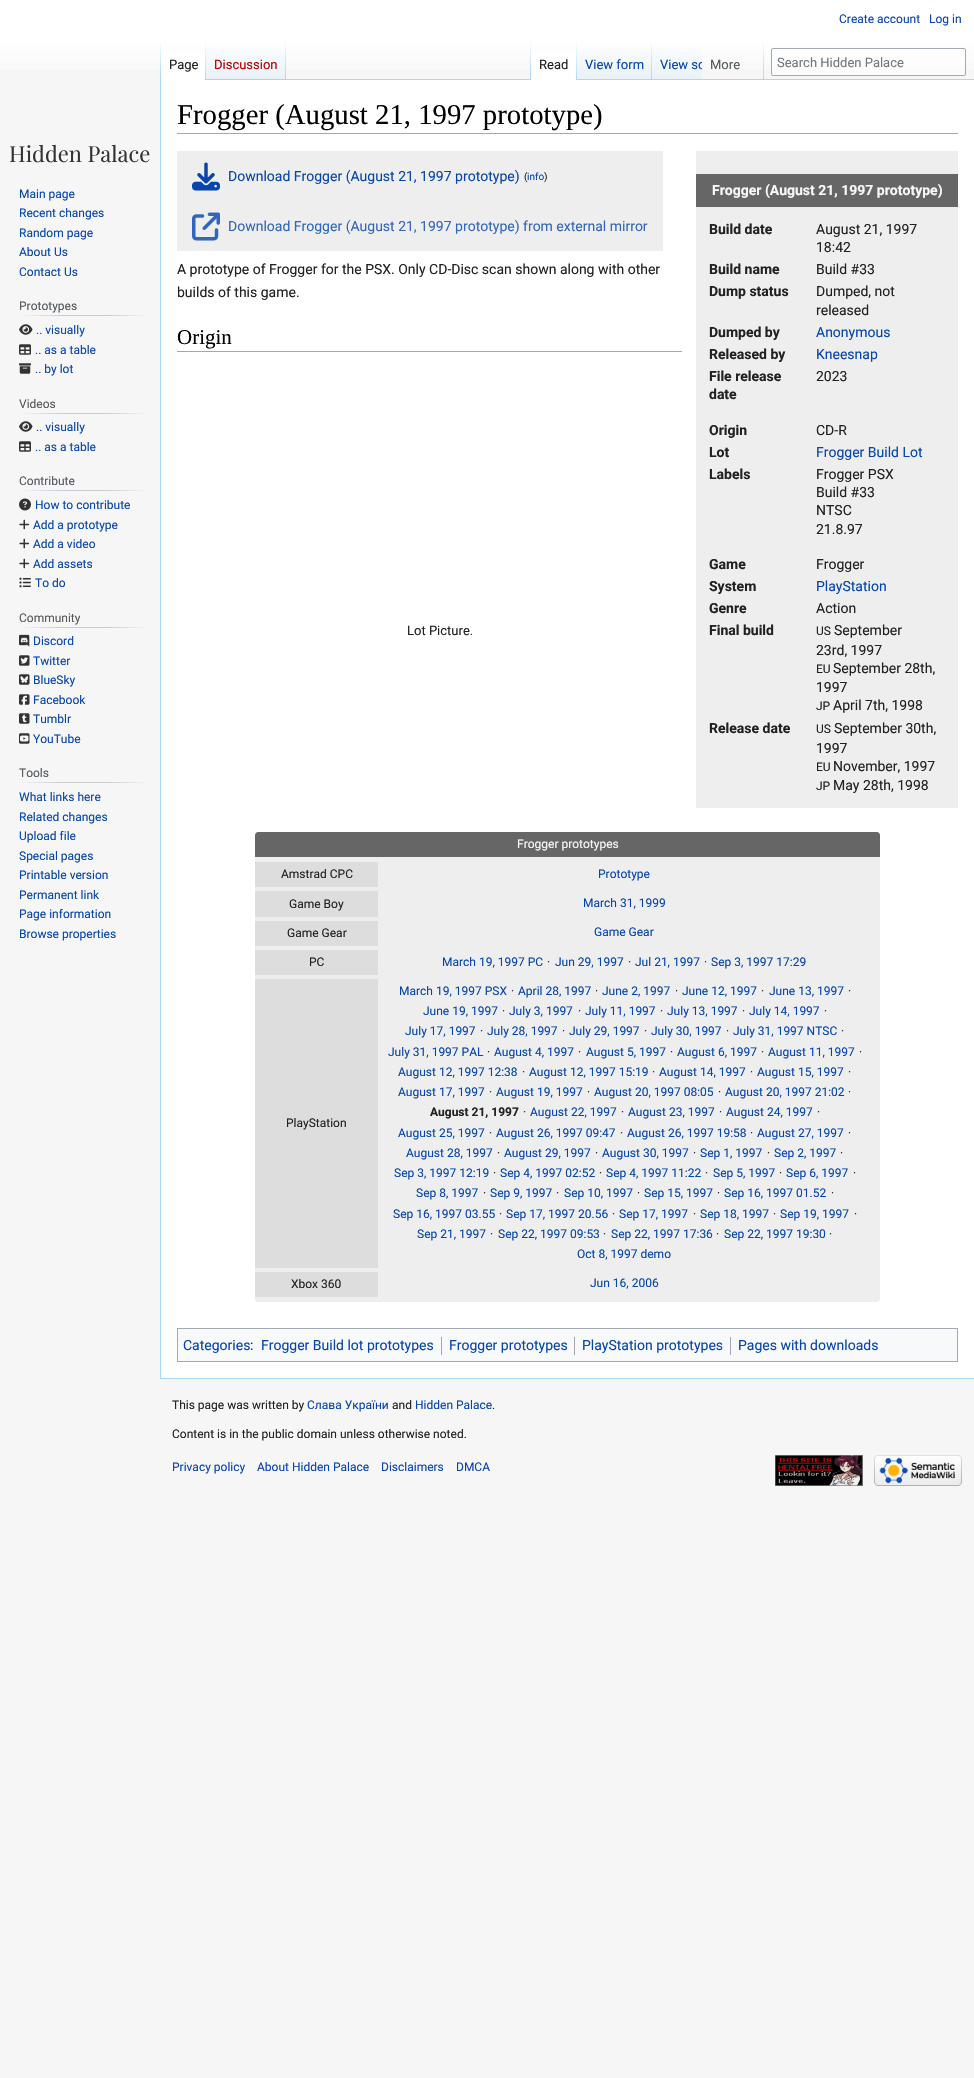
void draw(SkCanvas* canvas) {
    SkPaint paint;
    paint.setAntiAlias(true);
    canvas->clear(0xFFF6F6F6);
    {
        const SkColor colors[] = {0xFFFFFFFF, 0xFFF6F6F6};
        const float stops[] = {0.5f, 1};
        const SkPoint ends[] = {{487, 0}, {487, 80}};
        paint.setShader(SkGradientShader::MakeLinear(ends, colors, stops, 2, SkTileMode::kClamp));
        paint.setAlpha(255);
    }
    canvas->drawRect(SkRect::MakeXYWH(0, 0, 974, 69), paint);
    SkFont font1(fontMgr->matchFamilyStyle("Roboto", SkFontStyle::Normal()), 12);
    font1.setSubpixel(true);
    paint.setShader(nullptr);
    paint.setColor(0xFF0645AD);
    canvas->drawString("Create account", 839, 23, font1, paint);
    canvas->drawString("Log in", 929, 23, font1, paint);
    paint.setColor(0xFFA7D7F9);
    canvas->drawRect(SkRect::MakeXYWH(160, 1378, 814, 1), paint);
    canvas->drawRect(SkRect::MakeXYWH(160, 79, 1, 1300), paint);
    {
        const SkColor colors[] = {0x00A7D7F9, 0xFFA7D7F9};
        const float stops[] = {0, 1};
        const SkPoint ends[] = {{161, 40}, {161, 80}};
        paint.setShader(SkGradientShader::MakeLinear(ends, colors, stops, 2, SkTileMode::kClamp));
        paint.setAlpha(255);
    }
    canvas->drawRect(SkRect::MakeXYWH(160, 40, 1, 40), paint);
    paint.setShader(nullptr);
    paint.setColor(0xFFFFFFFF);
    canvas->drawRect(SkRect::MakeXYWH(161, 51, 44, 29), paint);
    {
        const SkColor colors[] = {0xFFFFFFFF, 0xFFA7D7F9};
        const float stops[] = {0, 1};
        const SkPoint ends[] = {{206, 40}, {206, 80}};
        paint.setShader(SkGradientShader::MakeLinear(ends, colors, stops, 2, SkTileMode::kClamp));
        paint.setAlpha(255);
    }
    canvas->drawRect(SkRect::MakeXYWH(205, 40, 1, 40), paint);
    SkFont font2(fontMgr->matchFamilyStyle("Roboto", SkFontStyle::Normal()), 13);
    font2.setSubpixel(true);
    paint.setShader(nullptr);
    paint.setColor(0xFF202122);
    canvas->drawString("Page", 169, 69, font2, paint);
    {
        const SkColor colors[] = {0xFF77C1F6, 0xFFE8F2F8, 0xFFFFFFFF};
        const float stops[] = {0, 0.03f, 1};
        const SkPoint ends[] = {{246, 80}, {246, 40}};
        paint.setShader(SkGradientShader::MakeLinear(ends, colors, stops, 3, SkTileMode::kClamp));
        paint.setAlpha(255);
    }
    canvas->drawRect(SkRect::MakeXYWH(206, 46, 80, 34), paint);
    {
        const SkColor colors[] = {0x00A7D7F9, 0xFFA7D7F9};
        const float stops[] = {0, 1};
        const SkPoint ends[] = {{286, 40}, {286, 80}};
        paint.setShader(SkGradientShader::MakeLinear(ends, colors, stops, 2, SkTileMode::kClamp));
        paint.setAlpha(255);
    }
    canvas->drawRect(SkRect::MakeXYWH(285, 40, 1, 40), paint);
    paint.setShader(nullptr);
    paint.setColor(0xFFBA0000);
    canvas->drawString("Discussion", 214, 69, font2, paint);
    paint.setColor(0xFFA7D7F9);
    canvas->drawRect(SkRect::MakeXYWH(286, 79, 688, 1), paint);
    {
        const SkColor colors[] = {0x00A7D7F9, 0xFFA7D7F9};
        const float stops[] = {0, 1};
        const SkPoint ends[] = {{531, 40}, {531, 80}};
        paint.setShader(SkGradientShader::MakeLinear(ends, colors, stops, 2, SkTileMode::kClamp));
        paint.setAlpha(255);
    }
    canvas->drawRect(SkRect::MakeXYWH(530, 40, 1, 40), paint);
    paint.setShader(nullptr);
    paint.setColor(0xFFFFFFFF);
    canvas->drawRect(SkRect::MakeXYWH(531, 51, 45, 29), paint);
    {
        const SkColor colors[] = {0xFFFFFFFF, 0xFFA7D7F9};
        const float stops[] = {0, 1};
        const SkPoint ends[] = {{577, 40}, {577, 80}};
        paint.setShader(SkGradientShader::MakeLinear(ends, colors, stops, 2, SkTileMode::kClamp));
        paint.setAlpha(255);
    }
    canvas->drawRect(SkRect::MakeXYWH(576, 40, 1, 40), paint);
    paint.setShader(nullptr);
    paint.setColor(0xFF202122);
    canvas->drawString("Read", 539, 69, font2, paint);
    {
        const SkColor colors[] = {0xFF77C1F6, 0xFFE8F2F8, 0xFFFFFFFF};
        const float stops[] = {0, 0.03f, 1};
        const SkPoint ends[] = {{615, 80}, {615, 40}};
        paint.setShader(SkGradientShader::MakeLinear(ends, colors, stops, 3, SkTileMode::kClamp));
        paint.setAlpha(255);
    }
    canvas->drawRect(SkRect::MakeXYWH(577, 46, 75, 33), paint);
    {
        const SkColor colors[] = {0x00A7D7F9, 0xFFA7D7F9};
        const float stops[] = {0, 1};
        const SkPoint ends[] = {{652, 40}, {652, 80}};
        paint.setShader(SkGradientShader::MakeLinear(ends, colors, stops, 2, SkTileMode::kClamp));
        paint.setAlpha(255);
    }
    canvas->drawRect(SkRect::MakeXYWH(651, 40, 1, 40), paint);
    paint.setShader(nullptr);
    paint.setColor(0xFF0645AD);
    canvas->drawString("View form", 585, 69, font2, paint);
    {
        const SkColor colors[] = {0xFF77C1F6, 0xFFE8F2F8, 0xFFFFFFFF};
        const float stops[] = {0, 0.03f, 1};
        const SkPoint ends[] = {{677, 80}, {677, 40}};
        paint.setShader(SkGradientShader::MakeLinear(ends, colors, stops, 3, SkTileMode::kClamp));
        paint.setAlpha(255);
    }
    canvas->drawRect(SkRect::MakeXYWH(652, 46, 50, 33), paint);
    canvas->save();
    canvas->clipRect(SkRect::MakeXYWH(652, 40, 50, 40));
    paint.setShader(nullptr);
    paint.setColor(0xFF0645AD);
    canvas->drawString("View so", 660, 69, font2, paint);
    canvas->restore();
    {
        const SkColor colors[] = {0x00A7D7F9, 0xFFA7D7F9};
        const float stops[] = {0, 1};
        const SkPoint ends[] = {{764, 40}, {764, 80}};
        paint.setShader(SkGradientShader::MakeLinear(ends, colors, stops, 2, SkTileMode::kClamp));
        paint.setAlpha(255);
    }
    canvas->drawRect(SkRect::MakeXYWH(763, 40, 1, 40), paint);
    paint.setShader(nullptr);
    paint.setColor(0xFF54595D);
    canvas->drawString("More", 710, 69, font2, paint);
    paint.setColor(0x80FFFFFF);
    canvas->drawRoundRect(SkRect::MakeXYWH(771.5f, 48.5f, 194, 27), 1.5f, 1.5f, paint);
    paint.setStyle(SkPaint::kStroke_Style);
    paint.setStrokeWidth(1);
    paint.setColor(0xFFA2A9B1);
    canvas->drawRoundRect(SkRect::MakeXYWH(771.5f, 48.5f, 194, 27), 1.5f, 1.5f, paint);
    paint.setStyle(SkPaint::kFill_Style);
    paint.setColor(0xFF72777D);
    canvas->drawString("Search Hidden Palace", 777, 67, font2, paint);
    SkFont font3(fontMgr->matchFamilyStyle("Playfair Display", SkFontStyle::Normal()), 22);
    font3.setSubpixel(true);
    paint.setColor(0xFF333333);
    canvas->drawString("Hidden Palace", 9, 162, font3, paint);
    paint.setColor(0xFF0645AD);
    canvas->drawString("Main page", 19, 198, font1, paint);
    canvas->drawString("Recent changes", 19, 217, font1, paint);
    canvas->drawString("Random page", 19, 237, font1, paint);
    canvas->drawString("About Us", 19, 256, font1, paint);
    canvas->drawString("Contact Us", 19, 276, font1, paint);
    {
        const SkColor colors[] = {0xFFF6F6F6, 0xFFC8CCD1, 0xFFC8CCD1, 0xFFF6F6F6};
        const float stops[] = {0, 0.33f, 0.66f, 1};
        const SkPoint ends[] = {{19, 316}, {150, 316}};
        paint.setShader(SkGradientShader::MakeLinear(ends, colors, stops, 4, SkTileMode::kClamp));
        paint.setAlpha(255);
    }
    canvas->drawRect(SkRect::MakeXYWH(19, 315, 131, 1), paint);
    paint.setShader(nullptr);
    paint.setColor(0xFF54595D);
    canvas->drawString("Prototypes", 19, 310, font1, paint);
    canvas->drawImageRect(SkImages::DeferredFromEncodedData(SkData::MakeFromFileName("img1.png")), SkRect::MakeXYWH(19, 324, 14, 11), SkSamplingOptions());
    paint.setColor(0xFF0645AD);
    canvas->drawString(".. visually", 36, 334, font1, paint);
    canvas->drawImageRect(SkImages::DeferredFromEncodedData(SkData::MakeFromFileName("img2.png")), SkRect::MakeXYWH(19, 344, 12, 11), SkSamplingOptions());
    canvas->drawString(".. as a table", 35, 354, font1, paint);
    canvas->drawImageRect(SkImages::DeferredFromEncodedData(SkData::MakeFromFileName("img3.png")), SkRect::MakeXYWH(19, 363, 12, 11), SkSamplingOptions());
    canvas->drawString(".. by lot", 35, 373, font1, paint);
    {
        const SkColor colors[] = {0xFFF6F6F6, 0xFFC8CCD1, 0xFFC8CCD1, 0xFFF6F6F6};
        const float stops[] = {0, 0.33f, 0.66f, 1};
        const SkPoint ends[] = {{19, 414}, {150, 414}};
        paint.setShader(SkGradientShader::MakeLinear(ends, colors, stops, 4, SkTileMode::kClamp));
        paint.setAlpha(255);
    }
    canvas->drawRect(SkRect::MakeXYWH(19, 413, 131, 1), paint);
    paint.setShader(nullptr);
    paint.setColor(0xFF54595D);
    canvas->drawString("Videos", 19, 408, font1, paint);
    canvas->drawImageRect(SkImages::DeferredFromEncodedData(SkData::MakeFromFileName("img1.png")), SkRect::MakeXYWH(19, 421, 14, 11), SkSamplingOptions());
    paint.setColor(0xFF0645AD);
    canvas->drawString(".. visually", 36, 431, font1, paint);
    canvas->drawImageRect(SkImages::DeferredFromEncodedData(SkData::MakeFromFileName("img2.png")), SkRect::MakeXYWH(19, 441, 12, 11), SkSamplingOptions());
    canvas->drawString(".. as a table", 35, 451, font1, paint);
    {
        const SkColor colors[] = {0xFFF6F6F6, 0xFFC8CCD1, 0xFFC8CCD1, 0xFFF6F6F6};
        const float stops[] = {0, 0.33f, 0.66f, 1};
        const SkPoint ends[] = {{19, 491}, {150, 491}};
        paint.setShader(SkGradientShader::MakeLinear(ends, colors, stops, 4, SkTileMode::kClamp));
        paint.setAlpha(255);
    }
    canvas->drawRect(SkRect::MakeXYWH(19, 490, 131, 1), paint);
    paint.setShader(nullptr);
    paint.setColor(0xFF54595D);
    canvas->drawString("Contribute", 19, 485, font1, paint);
    canvas->drawImageRect(SkImages::DeferredFromEncodedData(SkData::MakeFromFileName("img4.png")), SkRect::MakeXYWH(19, 498, 12, 13), SkSamplingOptions());
    paint.setColor(0xFF0645AD);
    canvas->drawString("How to contribute", 35, 509, font1, paint);
    canvas->drawImageRect(SkImages::DeferredFromEncodedData(SkData::MakeFromFileName("img5.png")), SkRect::MakeXYWH(19, 519, 11, 11), SkSamplingOptions());
    canvas->drawString("Add a prototype", 33, 529, font1, paint);
    canvas->drawImageRect(SkImages::DeferredFromEncodedData(SkData::MakeFromFileName("img5.png")), SkRect::MakeXYWH(19, 538, 11, 11), SkSamplingOptions());
    canvas->drawString("Add a video", 33, 548, font1, paint);
    canvas->drawImageRect(SkImages::DeferredFromEncodedData(SkData::MakeFromFileName("img5.png")), SkRect::MakeXYWH(19, 558, 11, 11), SkSamplingOptions());
    canvas->drawString("Add assets", 33, 568, font1, paint);
    canvas->drawImageRect(SkImages::DeferredFromEncodedData(SkData::MakeFromFileName("img6.png")), SkRect::MakeXYWH(19, 577, 12, 11), SkSamplingOptions());
    canvas->drawString("To do", 35, 587, font1, paint);
    {
        const SkColor colors[] = {0xFFF6F6F6, 0xFFC8CCD1, 0xFFC8CCD1, 0xFFF6F6F6};
        const float stops[] = {0, 0.33f, 0.66f, 1};
        const SkPoint ends[] = {{19, 628}, {150, 628}};
        paint.setShader(SkGradientShader::MakeLinear(ends, colors, stops, 4, SkTileMode::kClamp));
        paint.setAlpha(255);
    }
    canvas->drawRect(SkRect::MakeXYWH(19, 627, 131, 1), paint);
    paint.setShader(nullptr);
    paint.setColor(0xFF54595D);
    canvas->drawString("Community", 19, 622, font1, paint);
    canvas->drawImageRect(SkImages::DeferredFromEncodedData(SkData::MakeFromFileName("img7.png")), SkRect::MakeXYWH(19, 634, 11, 13), SkSamplingOptions());
    paint.setColor(0xFF0645AD);
    canvas->drawString("Discord", 33, 645, font1, paint);
    canvas->drawImageRect(SkImages::DeferredFromEncodedData(SkData::MakeFromFileName("img8.png")), SkRect::MakeXYWH(19, 655, 11, 11), SkSamplingOptions());
    canvas->drawString("Twitter", 33, 665, font1, paint);
    canvas->drawImageRect(SkImages::DeferredFromEncodedData(SkData::MakeFromFileName("img9.png")), SkRect::MakeXYWH(19, 674, 11, 11), SkSamplingOptions());
    canvas->drawString("BlueSky", 33, 684, font1, paint);
    canvas->drawImageRect(SkImages::DeferredFromEncodedData(SkData::MakeFromFileName("img10.png")), SkRect::MakeXYWH(19, 694, 11, 11), SkSamplingOptions());
    canvas->drawString("Facebook", 33, 704, font1, paint);
    canvas->drawImageRect(SkImages::DeferredFromEncodedData(SkData::MakeFromFileName("img11.png")), SkRect::MakeXYWH(19, 713, 11, 11), SkSamplingOptions());
    canvas->drawString("Tumblr", 33, 723, font1, paint);
    canvas->drawImageRect(SkImages::DeferredFromEncodedData(SkData::MakeFromFileName("img12.png")), SkRect::MakeXYWH(19, 733, 11, 11), SkSamplingOptions());
    canvas->drawString("YouTube", 33, 743, font1, paint);
    {
        const SkColor colors[] = {0xFFF6F6F6, 0xFFC8CCD1, 0xFFC8CCD1, 0xFFF6F6F6};
        const float stops[] = {0, 0.33f, 0.66f, 1};
        const SkPoint ends[] = {{19, 783}, {150, 783}};
        paint.setShader(SkGradientShader::MakeLinear(ends, colors, stops, 4, SkTileMode::kClamp));
        paint.setAlpha(255);
    }
    canvas->drawRect(SkRect::MakeXYWH(19, 782, 131, 1), paint);
    paint.setShader(nullptr);
    paint.setColor(0xFF54595D);
    canvas->drawString("Tools", 19, 777, font1, paint);
    paint.setColor(0xFF0645AD);
    canvas->drawString("What links here", 19, 801, font1, paint);
    canvas->drawString("Related changes", 19, 821, font1, paint);
    canvas->drawString("Upload file", 19, 840, font1, paint);
    canvas->drawString("Special pages", 19, 860, font1, paint);
    canvas->drawString("Printable version", 19, 879, font1, paint);
    canvas->drawString("Permanent link", 19, 899, font1, paint);
    canvas->drawString("Page information", 19, 918, font1, paint);
    canvas->drawString("Browse properties", 19, 938, font1, paint);
    paint.setColor(0xFFFFFFFF);
    canvas->drawRect(SkRect::MakeXYWH(161, 80, 813, 1298), paint);
    paint.setColor(0xFFA2A9B1);
    canvas->drawRect(SkRect::MakeXYWH(177, 133, 781, 1), paint);
    SkFont font4(fontMgr->matchFamilyStyle("Liberation Serif", SkFontStyle::Normal()), 28.75f);
    font4.setSubpixel(true);
    paint.setColor(0xFF000000);
    canvas->drawString("Frogger (August 21, 1997 prototype)", 177, 124, font4, paint);
    paint.setColor(0xFFEEEEEE);
    canvas->drawRect(SkRect::MakeXYWH(177, 151, 486, 100), paint);
    canvas->drawImageRect(SkImages::DeferredFromEncodedData(SkData::MakeFromFileName("img13.png")), SkRect::MakeXYWH(192, 162, 28, 29), SkSamplingOptions());
    SkFont font5(fontMgr->matchFamilyStyle("Roboto", SkFontStyle::Normal()), 14);
    font5.setSubpixel(true);
    paint.setColor(0xFF0645AD);
    canvas->drawString("Download Frogger (August 21, 1997 prototype)", 228, 181, font5, paint);
    SkFont font6(fontMgr->matchFamilyStyle("Roboto", SkFontStyle::Normal()), 10);
    font6.setSubpixel(true);
    paint.setColor(0xFF202122);
    canvas->drawString("(", 524, 180, font6, paint);
    paint.setColor(0xFF0645AD);
    canvas->drawString("info", 527, 180, font6, paint);
    paint.setColor(0xFF202122);
    canvas->drawString(")", 544, 180, font6, paint);
    canvas->drawImageRect(SkImages::DeferredFromEncodedData(SkData::MakeFromFileName("img14.png")), SkRect::MakeXYWH(192, 212, 28, 29), SkSamplingOptions());
    paint.setColor(0xFF3366BB);
    canvas->drawString("Download Frogger (August 21, 1997 prototype) from external mirror", 228, 231, font5, paint);
    paint.setColor(0xFFEEEEEE);
    canvas->drawRect(SkRect::MakeXYWH(696, 151, 262, 657), paint);
    paint.setColor(0xFF666666);
    canvas->drawRect(SkRect::MakeXYWH(696, 174, 262, 33), paint);
    SkFont font7(fontMgr->matchFamilyStyle("Roboto", SkFontStyle::Bold()), 14);
    font7.setSubpixel(true);
    paint.setColor(0xFFF8F8F8);
    canvas->drawString("Frogger (August 21, 1997 prototype)", 712, 195, font7, paint);
    paint.setColor(0xFF202122);
    canvas->drawString("Build date", 709, 234, font7, paint);
    canvas->drawString("August 21, 1997", 816, 234, font5, paint);
    canvas->drawString("18:42", 816, 252, font5, paint);
    canvas->drawString("Build name", 709, 274, font7, paint);
    canvas->drawString("Build #33", 816, 274, font5, paint);
    canvas->drawString("Dump status", 709, 296, font7, paint);
    canvas->drawString("Dumped, not", 816, 296, font5, paint);
    canvas->drawString("released", 816, 315, font5, paint);
    canvas->drawString("Dumped by", 709, 337, font7, paint);
    paint.setColor(0xFF0645AD);
    canvas->drawString("Anonymous", 816, 337, font5, paint);
    paint.setColor(0xFF202122);
    canvas->drawString("Released by", 709, 359, font7, paint);
    paint.setColor(0xFF0645AD);
    canvas->drawString("Kneesnap", 816, 359, font5, paint);
    paint.setColor(0xFF202122);
    canvas->drawString("File release", 709, 381, font7, paint);
    canvas->drawString("date", 709, 399, font7, paint);
    canvas->drawString("2023", 816, 381, font5, paint);
    canvas->drawString("Origin", 709, 435, font7, paint);
    canvas->drawString("CD-R", 816, 435, font5, paint);
    canvas->drawString("Lot", 709, 457, font7, paint);
    paint.setColor(0xFF0645AD);
    canvas->drawString("Frogger Build Lot", 816, 457, font5, paint);
    paint.setColor(0xFF202122);
    canvas->drawString("Labels", 709, 479, font7, paint);
    canvas->drawString("Frogger PSX", 816, 479, font5, paint);
    canvas->drawString("Build #33", 816, 497, font5, paint);
    canvas->drawString("NTSC", 816, 515, font5, paint);
    canvas->drawString("21.8.97", 816, 534, font5, paint);
    canvas->drawString("Game", 709, 569, font7, paint);
    canvas->drawString("Frogger", 816, 569, font5, paint);
    canvas->drawString("System", 709, 591, font7, paint);
    paint.setColor(0xFF0645AD);
    canvas->drawString("PlayStation", 816, 591, font5, paint);
    paint.setColor(0xFF202122);
    canvas->drawString("Genre", 709, 613, font7, paint);
    canvas->drawString("Action", 816, 613, font5, paint);
    canvas->drawString("Final build", 709, 635, font7, paint);
    canvas->drawString("US", 816, 635, font1, paint);
    canvas->drawString("September", 834, 635, font5, paint);
    canvas->drawString("23rd, 1997", 816, 655, font5, paint);
    canvas->drawString("EU", 816, 673, font1, paint);
    canvas->drawString("September 28th,", 833, 673, font5, paint);
    canvas->drawString("1997", 816, 692, font5, paint);
    canvas->drawString("JP", 816, 710, font1, paint);
    canvas->drawString("April 7th, 1998", 833, 710, font5, paint);
    canvas->drawString("Release date", 709, 733, font7, paint);
    canvas->drawString("US", 816, 733, font1, paint);
    canvas->drawString("September 30th,", 834, 733, font5, paint);
    canvas->drawString("1997", 816, 753, font5, paint);
    canvas->drawString("EU", 816, 771, font1, paint);
    canvas->drawString("November, 1997", 833, 771, font5, paint);
    canvas->drawString("JP", 816, 790, font1, paint);
    canvas->drawString("May 28th, 1998", 833, 790, font5, paint);
    canvas->drawString("A prototype of Frogger for the PSX. Only CD-Disc scan shown along with other", 177, 274, font5, paint);
    canvas->drawString("builds of this game.", 177, 297, font5, paint);
    paint.setColor(0xFFA2A9B1);
    canvas->drawRect(SkRect::MakeXYWH(177, 351, 505, 1), paint);
    SkFont font8(fontMgr->matchFamilyStyle("Liberation Serif", SkFontStyle::Normal()), 21);
    font8.setSubpixel(true);
    paint.setColor(0xFF000000);
    canvas->drawString("Origin", 177, 344, font8, paint);
    paint.setColor(0xFF202122);
    canvas->drawString("Lot Picture.", 407, 635, font2, paint);
    paint.setColor(0xFF666666);
    canvas->drawPath(SkPathBuilder().moveTo(258, 832).lineTo(877, 832).cubicTo(878.5f, 832, 880, 833.5f, 880, 835).lineTo(880, 857).lineTo(255, 857).lineTo(255, 835).cubicTo(255, 833.5f, 256.5f, 832, 258, 832).close().detach(), paint);
    paint.setColor(0xFFF8F8F8);
    canvas->drawString("Frogger prototypes", 517, 848, font1, paint);
    paint.setColor(0xFFEEEEEE);
    canvas->drawPath(SkPathBuilder().moveTo(255, 857).lineTo(880, 857).lineTo(880, 1299).cubicTo(880, 1300.5f, 878.5f, 1302, 877, 1302).lineTo(258, 1302).cubicTo(256.5f, 1302, 255, 1300.5f, 255, 1299).close().detach(), paint);
    paint.setColor(0xFFDDDDDD);
    canvas->drawRect(SkRect::MakeXYWH(255, 862, 123, 25), paint);
    paint.setColor(0xFF202122);
    canvas->drawString("Amstrad CPC", 281, 878, font1, paint);
    paint.setColor(0xFF0645AD);
    canvas->drawString("Prototype", 598, 878, font1, paint);
    paint.setColor(0xFFDDDDDD);
    canvas->drawRect(SkRect::MakeXYWH(255, 891, 123, 26), paint);
    paint.setColor(0xFF202122);
    canvas->drawString("Game Boy", 289, 908, font1, paint);
    paint.setColor(0xFF0645AD);
    canvas->drawString("March 31, 1999", 583, 907, font1, paint);
    paint.setColor(0xFFDDDDDD);
    canvas->drawRect(SkRect::MakeXYWH(255, 921, 123, 25), paint);
    paint.setColor(0xFF202122);
    canvas->drawString("Game Gear", 287, 937, font1, paint);
    paint.setColor(0xFF0645AD);
    canvas->drawString("Game Gear", 594, 936, font1, paint);
    paint.setColor(0xFFDDDDDD);
    canvas->drawRect(SkRect::MakeXYWH(255, 950, 123, 25), paint);
    paint.setColor(0xFF202122);
    canvas->drawString("PC", 309, 966, font1, paint);
    paint.setColor(0xFF0645AD);
    canvas->drawString("March 19, 1997 PC", 442, 966, font1, paint);
    paint.setColor(0xFF202122);
    canvas->drawString("·", 547, 966, font1, paint);
    paint.setColor(0xFF0645AD);
    canvas->drawString("Jun 29, 1997", 555, 966, font1, paint);
    paint.setColor(0xFF202122);
    canvas->drawString("·", 628, 966, font1, paint);
    paint.setColor(0xFF0645AD);
    canvas->drawString("Jul 21, 1997", 635, 966, font1, paint);
    paint.setColor(0xFF202122);
    canvas->drawString("·", 704, 966, font1, paint);
    paint.setColor(0xFF0645AD);
    canvas->drawString("Sep 3, 1997 17:29", 711, 966, font1, paint);
    paint.setColor(0xFFDDDDDD);
    canvas->drawRect(SkRect::MakeXYWH(255, 979, 123, 289), paint);
    paint.setColor(0xFF202122);
    canvas->drawString("PlayStation", 286, 1127, font1, paint);
    paint.setColor(0xFF0645AD);
    canvas->drawString("March 19, 1997 PSX", 399, 995, font1, paint);
    paint.setColor(0xFF202122);
    canvas->drawString("·", 511, 995, font1, paint);
    paint.setColor(0xFF0645AD);
    canvas->drawString("April 28, 1997", 518, 995, font1, paint);
    paint.setColor(0xFF202122);
    canvas->drawString("·", 595, 995, font1, paint);
    paint.setColor(0xFF0645AD);
    canvas->drawString("June 2, 1997", 602, 995, font1, paint);
    paint.setColor(0xFF202122);
    canvas->drawString("·", 675, 995, font1, paint);
    paint.setColor(0xFF0645AD);
    canvas->drawString("June 12, 1997", 682, 995, font1, paint);
    paint.setColor(0xFF202122);
    canvas->drawString("·", 761, 995, font1, paint);
    paint.setColor(0xFF0645AD);
    canvas->drawString("June 13, 1997", 769, 995, font1, paint);
    paint.setColor(0xFF202122);
    canvas->drawString("·", 848, 995, font1, paint);
    paint.setColor(0xFF0645AD);
    canvas->drawString("June 19, 1997", 423, 1015, font1, paint);
    paint.setColor(0xFF202122);
    canvas->drawString("·", 502, 1015, font1, paint);
    paint.setColor(0xFF0645AD);
    canvas->drawString("July 3, 1997", 509, 1015, font1, paint);
    paint.setColor(0xFF202122);
    canvas->drawString("·", 578, 1015, font1, paint);
    paint.setColor(0xFF0645AD);
    canvas->drawString("July 11, 1997", 585, 1015, font1, paint);
    paint.setColor(0xFF202122);
    canvas->drawString("·", 660, 1015, font1, paint);
    paint.setColor(0xFF0645AD);
    canvas->drawString("July 13, 1997", 667, 1015, font1, paint);
    paint.setColor(0xFF202122);
    canvas->drawString("·", 742, 1015, font1, paint);
    paint.setColor(0xFF0645AD);
    canvas->drawString("July 14, 1997", 749, 1015, font1, paint);
    paint.setColor(0xFF202122);
    canvas->drawString("·", 824, 1015, font1, paint);
    paint.setColor(0xFF0645AD);
    canvas->drawString("July 17, 1997", 405, 1035, font1, paint);
    paint.setColor(0xFF202122);
    canvas->drawString("·", 480, 1035, font1, paint);
    paint.setColor(0xFF0645AD);
    canvas->drawString("July 28, 1997", 487, 1035, font1, paint);
    paint.setColor(0xFF202122);
    canvas->drawString("·", 562, 1035, font1, paint);
    paint.setColor(0xFF0645AD);
    canvas->drawString("July 29, 1997", 569, 1035, font1, paint);
    paint.setColor(0xFF202122);
    canvas->drawString("·", 644, 1035, font1, paint);
    paint.setColor(0xFF0645AD);
    canvas->drawString("July 30, 1997", 651, 1035, font1, paint);
    paint.setColor(0xFF202122);
    canvas->drawString("·", 726, 1035, font1, paint);
    paint.setColor(0xFF0645AD);
    canvas->drawString("July 31, 1997 NTSC", 733, 1035, font1, paint);
    paint.setColor(0xFF202122);
    canvas->drawString("·", 841, 1035, font1, paint);
    paint.setColor(0xFF0645AD);
    canvas->drawString("July 31, 1997 PAL", 388, 1056, font1, paint);
    paint.setColor(0xFF202122);
    canvas->drawString("·", 487, 1056, font1, paint);
    paint.setColor(0xFF0645AD);
    canvas->drawString("August 4, 1997", 494, 1056, font1, paint);
    paint.setColor(0xFF202122);
    canvas->drawString("·", 578, 1056, font1, paint);
    paint.setColor(0xFF0645AD);
    canvas->drawString("August 5, 1997", 586, 1056, font1, paint);
    paint.setColor(0xFF202122);
    canvas->drawString("·", 670, 1056, font1, paint);
    paint.setColor(0xFF0645AD);
    canvas->drawString("August 6, 1997", 677, 1056, font1, paint);
    paint.setColor(0xFF202122);
    canvas->drawString("·", 761, 1056, font1, paint);
    paint.setColor(0xFF0645AD);
    canvas->drawString("August 11, 1997", 768, 1056, font1, paint);
    paint.setColor(0xFF202122);
    canvas->drawString("·", 859, 1056, font1, paint);
    paint.setColor(0xFF0645AD);
    canvas->drawString("August 12, 1997 12:38", 398, 1076, font1, paint);
    paint.setColor(0xFF202122);
    canvas->drawString("·", 522, 1076, font1, paint);
    paint.setColor(0xFF0645AD);
    canvas->drawString("August 12, 1997 15:19", 529, 1076, font1, paint);
    paint.setColor(0xFF202122);
    canvas->drawString("·", 652, 1076, font1, paint);
    paint.setColor(0xFF0645AD);
    canvas->drawString("August 14, 1997", 659, 1076, font1, paint);
    paint.setColor(0xFF202122);
    canvas->drawString("·", 750, 1076, font1, paint);
    paint.setColor(0xFF0645AD);
    canvas->drawString("August 15, 1997", 757, 1076, font1, paint);
    paint.setColor(0xFF202122);
    canvas->drawString("·", 848, 1076, font1, paint);
    paint.setColor(0xFF0645AD);
    canvas->drawString("August 17, 1997", 398, 1096, font1, paint);
    paint.setColor(0xFF202122);
    canvas->drawString("·", 489, 1096, font1, paint);
    paint.setColor(0xFF0645AD);
    canvas->drawString("August 19, 1997", 496, 1096, font1, paint);
    paint.setColor(0xFF202122);
    canvas->drawString("·", 587, 1096, font1, paint);
    paint.setColor(0xFF0645AD);
    canvas->drawString("August 20, 1997 08:05", 594, 1096, font1, paint);
    paint.setColor(0xFF202122);
    canvas->drawString("·", 718, 1096, font1, paint);
    paint.setColor(0xFF0645AD);
    canvas->drawString("August 20, 1997 21:02", 725, 1096, font1, paint);
    paint.setColor(0xFF202122);
    canvas->drawString("·", 848, 1096, font1, paint);
    SkFont font9(fontMgr->matchFamilyStyle("Roboto", SkFontStyle::Bold()), 12);
    font9.setSubpixel(true);
    canvas->drawString("August 21, 1997", 430, 1116, font9, paint);
    canvas->drawString("·", 523, 1116, font1, paint);
    paint.setColor(0xFF0645AD);
    canvas->drawString("August 22, 1997", 530, 1116, font1, paint);
    paint.setColor(0xFF202122);
    canvas->drawString("·", 621, 1116, font1, paint);
    paint.setColor(0xFF0645AD);
    canvas->drawString("August 23, 1997", 628, 1116, font1, paint);
    paint.setColor(0xFF202122);
    canvas->drawString("·", 719, 1116, font1, paint);
    paint.setColor(0xFF0645AD);
    canvas->drawString("August 24, 1997", 726, 1116, font1, paint);
    paint.setColor(0xFF202122);
    canvas->drawString("·", 817, 1116, font1, paint);
    paint.setColor(0xFF0645AD);
    canvas->drawString("August 25, 1997", 398, 1137, font1, paint);
    paint.setColor(0xFF202122);
    canvas->drawString("·", 489, 1137, font1, paint);
    paint.setColor(0xFF0645AD);
    canvas->drawString("August 26, 1997 09:47", 496, 1137, font1, paint);
    paint.setColor(0xFF202122);
    canvas->drawString("·", 620, 1137, font1, paint);
    paint.setColor(0xFF0645AD);
    canvas->drawString("August 26, 1997 19:58", 627, 1137, font1, paint);
    paint.setColor(0xFF202122);
    canvas->drawString("·", 750, 1137, font1, paint);
    paint.setColor(0xFF0645AD);
    canvas->drawString("August 27, 1997", 757, 1137, font1, paint);
    paint.setColor(0xFF202122);
    canvas->drawString("·", 848, 1137, font1, paint);
    paint.setColor(0xFF0645AD);
    canvas->drawString("August 28, 1997", 406, 1157, font1, paint);
    paint.setColor(0xFF202122);
    canvas->drawString("·", 497, 1157, font1, paint);
    paint.setColor(0xFF0645AD);
    canvas->drawString("August 29, 1997", 504, 1157, font1, paint);
    paint.setColor(0xFF202122);
    canvas->drawString("·", 595, 1157, font1, paint);
    paint.setColor(0xFF0645AD);
    canvas->drawString("August 30, 1997", 602, 1157, font1, paint);
    paint.setColor(0xFF202122);
    canvas->drawString("·", 693, 1157, font1, paint);
    paint.setColor(0xFF0645AD);
    canvas->drawString("Sep 1, 1997", 700, 1157, font1, paint);
    paint.setColor(0xFF202122);
    canvas->drawString("·", 767, 1157, font1, paint);
    paint.setColor(0xFF0645AD);
    canvas->drawString("Sep 2, 1997", 774, 1157, font1, paint);
    paint.setColor(0xFF202122);
    canvas->drawString("·", 840, 1157, font1, paint);
    paint.setColor(0xFF0645AD);
    canvas->drawString("Sep 3, 1997 12:19", 394, 1177, font1, paint);
    paint.setColor(0xFF202122);
    canvas->drawString("·", 493, 1177, font1, paint);
    paint.setColor(0xFF0645AD);
    canvas->drawString("Sep 4, 1997 02:52", 500, 1177, font1, paint);
    paint.setColor(0xFF202122);
    canvas->drawString("·", 599, 1177, font1, paint);
    paint.setColor(0xFF0645AD);
    canvas->drawString("Sep 4, 1997 11:22", 606, 1177, font1, paint);
    paint.setColor(0xFF202122);
    canvas->drawString("·", 705, 1177, font1, paint);
    paint.setColor(0xFF0645AD);
    canvas->drawString("Sep 5, 1997", 713, 1177, font1, paint);
    paint.setColor(0xFF202122);
    canvas->drawString("·", 779, 1177, font1, paint);
    paint.setColor(0xFF0645AD);
    canvas->drawString("Sep 6, 1997", 786, 1177, font1, paint);
    paint.setColor(0xFF202122);
    canvas->drawString("·", 853, 1177, font1, paint);
    paint.setColor(0xFF0645AD);
    canvas->drawString("Sep 8, 1997", 416, 1197, font1, paint);
    paint.setColor(0xFF202122);
    canvas->drawString("·", 483, 1197, font1, paint);
    paint.setColor(0xFF0645AD);
    canvas->drawString("Sep 9, 1997", 490, 1197, font1, paint);
    paint.setColor(0xFF202122);
    canvas->drawString("·", 556, 1197, font1, paint);
    paint.setColor(0xFF0645AD);
    canvas->drawString("Sep 10, 1997", 564, 1197, font1, paint);
    paint.setColor(0xFF202122);
    canvas->drawString("·", 637, 1197, font1, paint);
    paint.setColor(0xFF0645AD);
    canvas->drawString("Sep 15, 1997", 644, 1197, font1, paint);
    paint.setColor(0xFF202122);
    canvas->drawString("·", 717, 1197, font1, paint);
    paint.setColor(0xFF0645AD);
    canvas->drawString("Sep 16, 1997 01.52", 724, 1197, font1, paint);
    paint.setColor(0xFF202122);
    canvas->drawString("·", 831, 1197, font1, paint);
    paint.setColor(0xFF0645AD);
    canvas->drawString("Sep 16, 1997 03.55", 393, 1218, font1, paint);
    paint.setColor(0xFF202122);
    canvas->drawString("·", 499, 1218, font1, paint);
    paint.setColor(0xFF0645AD);
    canvas->drawString("Sep 17, 1997 20.56", 506, 1218, font1, paint);
    paint.setColor(0xFF202122);
    canvas->drawString("·", 612, 1218, font1, paint);
    paint.setColor(0xFF0645AD);
    canvas->drawString("Sep 17, 1997", 619, 1218, font1, paint);
    paint.setColor(0xFF202122);
    canvas->drawString("·", 693, 1218, font1, paint);
    paint.setColor(0xFF0645AD);
    canvas->drawString("Sep 18, 1997", 700, 1218, font1, paint);
    paint.setColor(0xFF202122);
    canvas->drawString("·", 773, 1218, font1, paint);
    paint.setColor(0xFF0645AD);
    canvas->drawString("Sep 19, 1997", 780, 1218, font1, paint);
    paint.setColor(0xFF202122);
    canvas->drawString("·", 854, 1218, font1, paint);
    paint.setColor(0xFF0645AD);
    canvas->drawString("Sep 21, 1997", 417, 1238, font1, paint);
    paint.setColor(0xFF202122);
    canvas->drawString("·", 490, 1238, font1, paint);
    paint.setColor(0xFF0645AD);
    canvas->drawString("Sep 22, 1997 09:53", 498, 1238, font1, paint);
    paint.setColor(0xFF202122);
    canvas->drawString("·", 603, 1238, font1, paint);
    paint.setColor(0xFF0645AD);
    canvas->drawString("Sep 22, 1997 17:36", 611, 1238, font1, paint);
    paint.setColor(0xFF202122);
    canvas->drawString("·", 716, 1238, font1, paint);
    paint.setColor(0xFF0645AD);
    canvas->drawString("Sep 22, 1997 19:30", 724, 1238, font1, paint);
    paint.setColor(0xFF202122);
    canvas->drawString("·", 829, 1238, font1, paint);
    paint.setColor(0xFF0645AD);
    canvas->drawString("Oct 8, 1997 demo", 577, 1258, font1, paint);
    paint.setColor(0xFFDDDDDD);
    canvas->drawRect(SkRect::MakeXYWH(255, 1272, 123, 25), paint);
    paint.setColor(0xFF202122);
    canvas->drawString("Xbox 360", 291, 1288, font1, paint);
    paint.setColor(0xFF0645AD);
    canvas->drawString("Jun 16, 2006", 590, 1287, font1, paint);
    paint.setColor(0xFFF8F9FA);
    canvas->drawRect(SkRect::MakeXYWH(177.5f, 1328.5f, 780, 33), paint);
    paint.setStyle(SkPaint::kStroke_Style);
    paint.setColor(0xFFA2A9B1);
    canvas->drawRect(SkRect::MakeXYWH(177.5f, 1328.5f, 780, 33), paint);
    paint.setStyle(SkPaint::kFill_Style);
    paint.setColor(0xFF0645AD);
    canvas->drawString("Categories", 183, 1350, font5, paint);
    paint.setColor(0xFF202122);
    canvas->drawString(":", 250, 1350, font5, paint);
    paint.setColor(0xFF0645AD);
    canvas->drawString("Frogger Build lot prototypes", 261, 1350, font5, paint);
    paint.setColor(0xFFA2A9B1);
    canvas->drawRect(SkRect::MakeXYWH(441, 1337, 1, 18), paint);
    paint.setColor(0xFF0645AD);
    canvas->drawString("Frogger prototypes", 449, 1350, font5, paint);
    paint.setColor(0xFFA2A9B1);
    canvas->drawRect(SkRect::MakeXYWH(574, 1337, 1, 18), paint);
    paint.setColor(0xFF0645AD);
    canvas->drawString("PlayStation prototypes", 582, 1350, font5, paint);
    paint.setColor(0xFFA2A9B1);
    canvas->drawRect(SkRect::MakeXYWH(730, 1337, 1, 18), paint);
    paint.setColor(0xFF0645AD);
    canvas->drawString("Pages with downloads", 738, 1350, font5, paint);
    paint.setColor(0xFF202122);
    canvas->drawString("This page was written by", 172, 1409, font1, paint);
    paint.setColor(0xFF0645AD);
    canvas->drawString("Слава України", 307, 1409, font1, paint);
    paint.setColor(0xFF202122);
    canvas->drawString("and", 392, 1409, font1, paint);
    paint.setColor(0xFF0645AD);
    canvas->drawString("Hidden Palace", 415, 1409, font1, paint);
    paint.setColor(0xFF202122);
    canvas->drawString(".", 492, 1409, font1, paint);
    canvas->drawString("Content is in the public domain unless otherwise noted.", 172, 1438, font1, paint);
    paint.setColor(0xFF0645AD);
    canvas->drawString("Privacy policy", 172, 1471, font1, paint);
    canvas->drawString("About Hidden Palace", 257, 1471, font1, paint);
    canvas->drawString("Disclaimers", 381, 1471, font1, paint);
    canvas->drawString("DMCA", 456, 1471, font1, paint);
    canvas->drawImageRect(SkImages::DeferredFromEncodedData(SkData::MakeFromFileName("img15.png")), SkRect::MakeXYWH(775, 1455, 88, 31), SkSamplingOptions());
    canvas->drawImageRect(SkImages::DeferredFromEncodedData(SkData::MakeFromFileName("img16.png")), SkRect::MakeXYWH(874, 1455, 88, 31), SkSamplingOptions());
}
